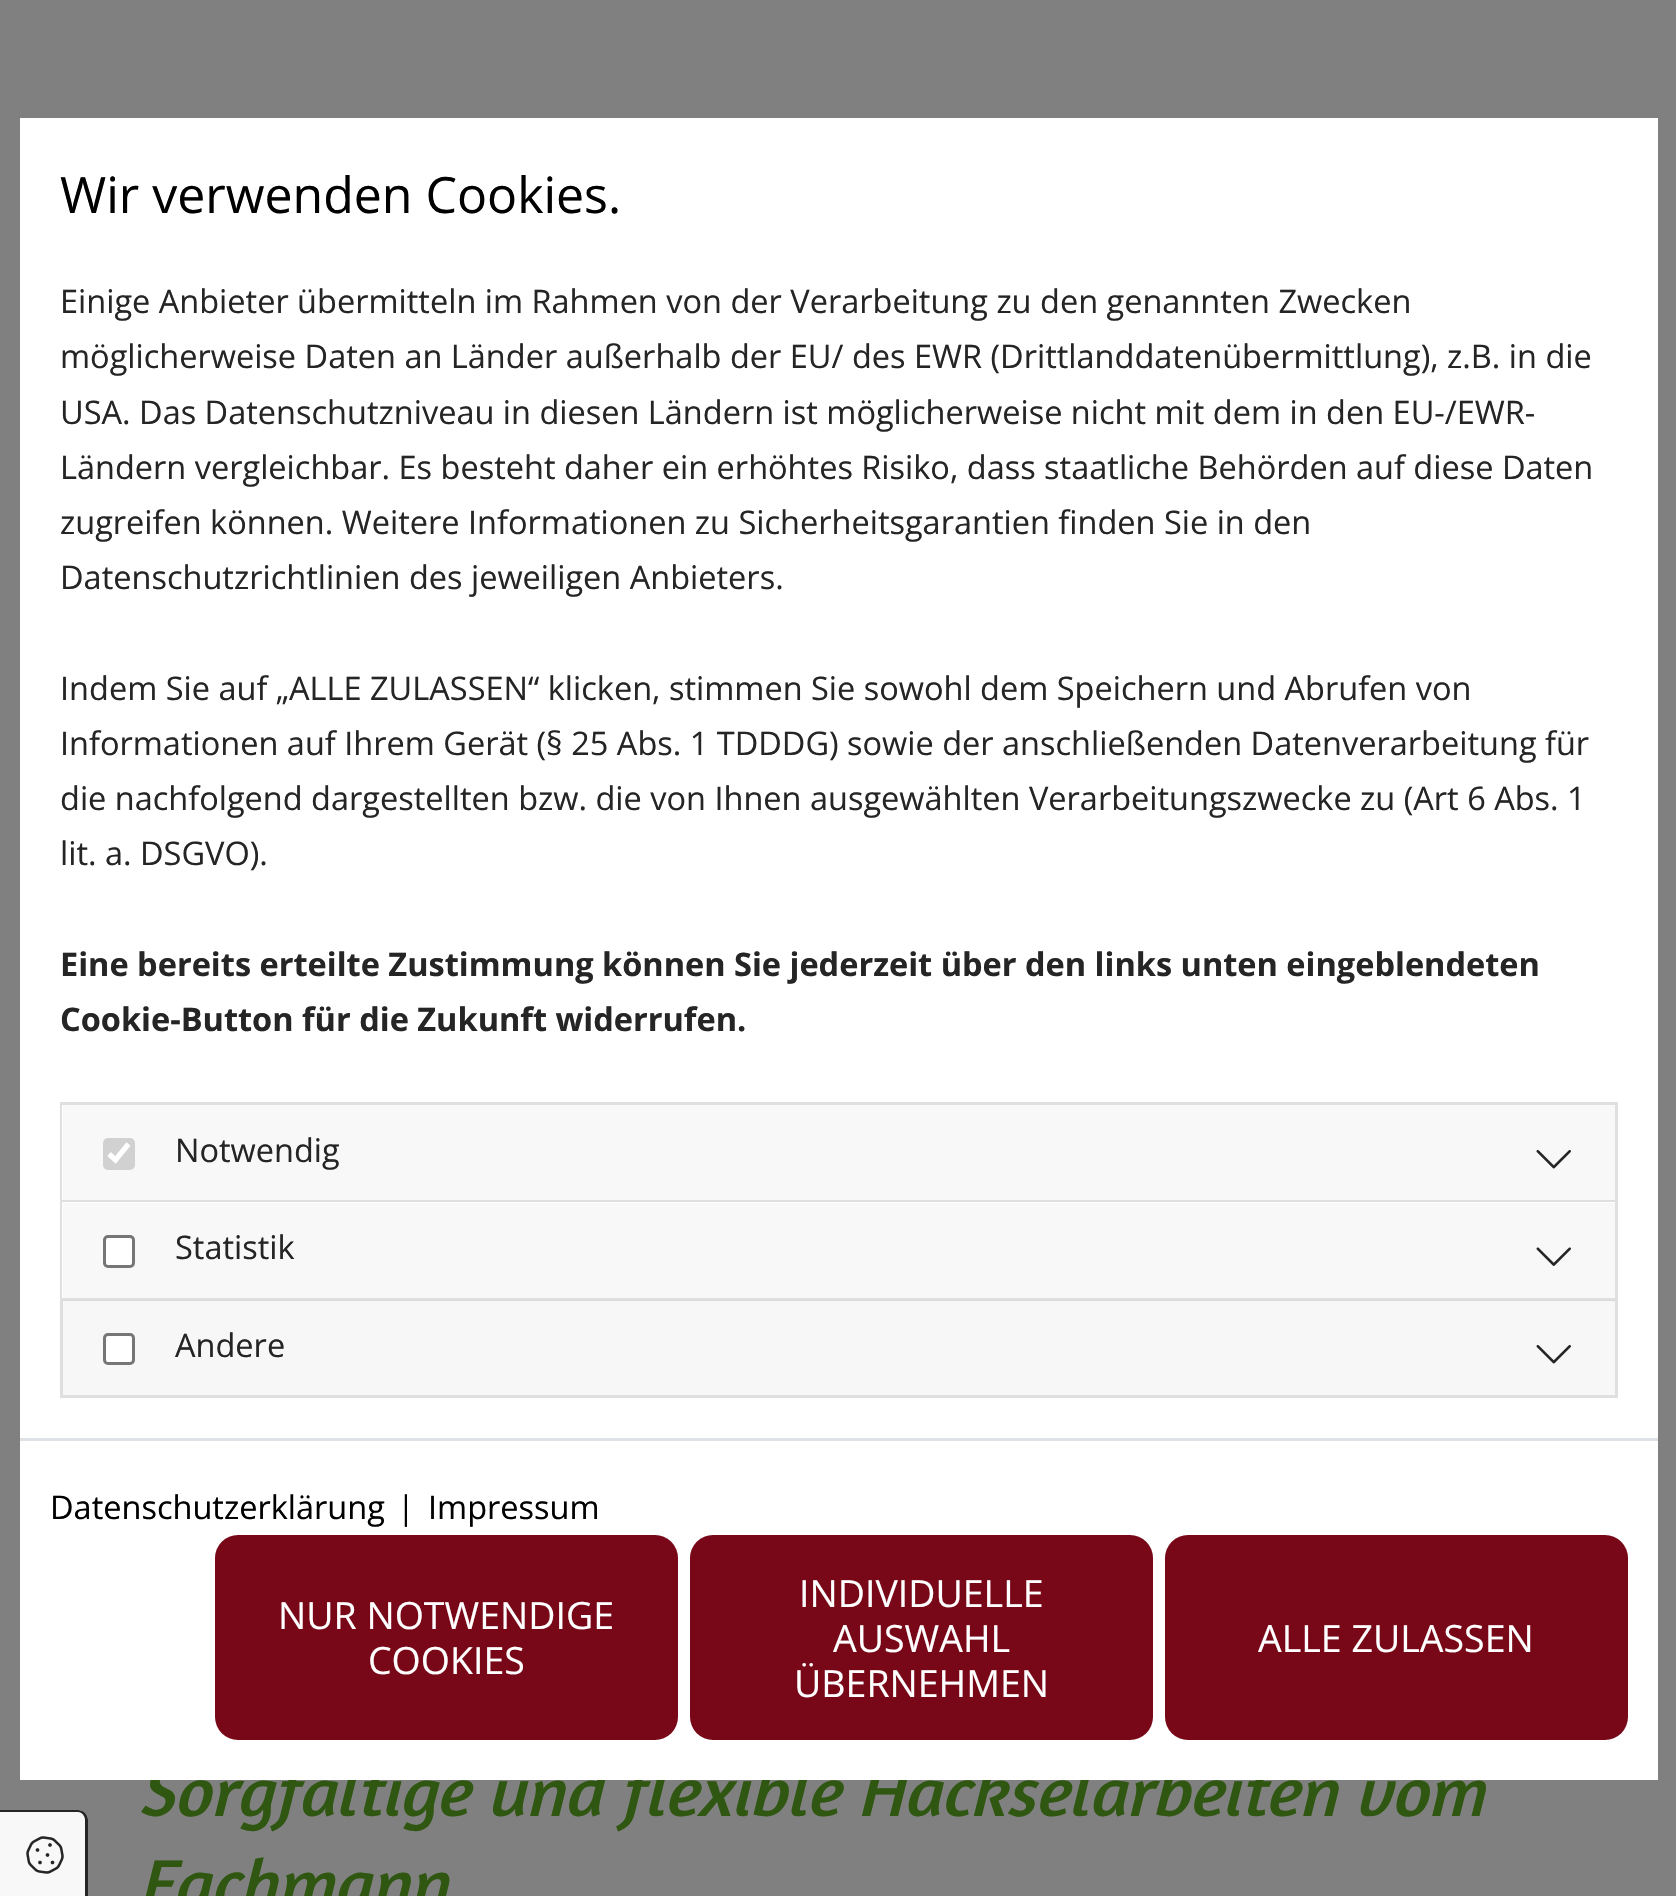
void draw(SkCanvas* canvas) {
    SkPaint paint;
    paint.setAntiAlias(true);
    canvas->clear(0xFF808080);
    SkFont font1(fontMgr->matchFamilyStyle("Amaranth", SkFontStyle::Italic()), 70);
    font1.setSubpixel(true);
    paint.setColor(0xFF2F5711);
    canvas->drawString("Sorgfältige und flexible Häckselarbeiten vom", 138, 1816, font1, paint);
    paint.setColor(0xFFFFFFFF);
    canvas->drawRect(SkRect::MakeXYWH(20, 118, 1638, 1662), paint);
    SkFont font2(fontMgr->matchFamilyStyle("Open Sans", SkFontStyle::Normal()), 50);
    font2.setSubpixel(true);
    paint.setColor(0xFF000000);
    canvas->drawString("Wir verwenden Cookies.", 60, 213, font2, paint);
    SkFont font3(fontMgr->matchFamilyStyle("Open Sans", SkFontStyle::Normal()), 32.5f);
    font3.setSubpixel(true);
    paint.setColor(0xFF252525);
    canvas->drawString("Einige Anbieter übermitteln im Rahmen von der Verarbeitung zu den genannten Zwecken", 60, 313, font3, paint);
    canvas->drawString("möglicherweise Daten an Länder außerhalb der EU/ des EWR (Drittlanddatenübermittlung), z.B. in die", 60, 368, font3, paint);
    canvas->drawString("USA. Das Datenschutzniveau in diesen Ländern ist möglicherweise nicht mit dem in den EU-/EWR-", 60, 424, font3, paint);
    canvas->drawString("Ländern vergleichbar. Es besteht daher ein erhöhtes Risiko, dass staatliche Behörden auf diese Daten", 60, 479, font3, paint);
    canvas->drawString("zugreifen können. Weitere Informationen zu Sicherheitsgarantien finden Sie in den", 60, 534, font3, paint);
    canvas->drawString("Datenschutzrichtlinien des jeweiligen Anbieters.", 60, 589, font3, paint);
    canvas->drawString("Indem Sie auf „ALLE ZULASSEN“ klicken, stimmen Sie sowohl dem Speichern und Abrufen von", 60, 700, font3, paint);
    canvas->drawString("Informationen auf Ihrem Gerät (§ 25 Abs. 1 TDDDG) sowie der anschließenden Datenverarbeitung für", 60, 755, font3, paint);
    canvas->drawString("die nachfolgend dargestellten bzw. die von Ihnen ausgewählten Verarbeitungszwecke zu (Art 6 Abs. 1", 60, 810, font3, paint);
    canvas->drawString("lit. a. DSGVO).", 60, 865, font3, paint);
    SkFont font4(fontMgr->matchFamilyStyle("Open Sans", SkFontStyle::Bold()), 32.5f);
    font4.setSubpixel(true);
    canvas->drawString("Eine bereits erteilte Zustimmung können Sie jederzeit über den links unten eingeblendeten", 60, 976, font4, paint);
    canvas->drawString("Cookie-Button für die Zukunft widerrufen.", 60, 1031, font4, paint);
    paint.setColor(0xFFDFDFDF);
    canvas->drawPath(SkPathBuilder().moveTo(60, 1102).lineTo(1618, 1102).lineTo(1615, 1105).lineTo(62, 1105).close().detach(), paint);
    paint.setColor(0x1F000000);
    canvas->drawPath(SkPathBuilder().moveTo(1618, 1102).lineTo(1618, 1200).lineTo(1615, 1200).lineTo(1615, 1105).close().detach(), paint);
    canvas->drawPath(SkPathBuilder().moveTo(60, 1200).lineTo(60, 1102).lineTo(62, 1105).lineTo(62, 1200).close().detach(), paint);
    paint.setColor(0xFFF8F8F8);
    canvas->drawRect(SkRect::MakeXYWH(63, 1105, 1552, 95), paint);
    paint.setColor(0xFFD1D1D1);
    canvas->drawRoundRect(SkRect::MakeXYWH(103, 1138, 32, 32), 5, 5, paint);
    paint.setStyle(SkPaint::kStroke_Style);
    paint.setStrokeWidth(5.2f);
    paint.setColor(0xFFFFFFFF);
    canvas->drawPath(SkPathBuilder().moveTo(109, 1154).lineTo(115.5f, 1160).lineTo(128.5f, 1144).detach(), paint);
    paint.setStyle(SkPaint::kFill_Style);
    paint.setColor(0xFF252525);
    canvas->drawString("Notwendig", 175, 1162, font3, paint);
    canvas->drawImageRect(SkImages::DeferredFromEncodedData(SkData::MakeFromFileName("img1.png")), SkRect::MakeXYWH(1536, 1149, 35, 20), SkSamplingOptions());
    paint.setColor(0xFFDFDFDF);
    canvas->drawPath(SkPathBuilder().moveTo(60, 1200).lineTo(1618, 1200).lineTo(1615, 1202).lineTo(62, 1202).close().detach(), paint);
    paint.setColor(0x1F000000);
    canvas->drawPath(SkPathBuilder().moveTo(1618, 1200).lineTo(1618, 1298).lineTo(1615, 1298).lineTo(1615, 1202).close().detach(), paint);
    canvas->drawPath(SkPathBuilder().moveTo(60, 1298).lineTo(60, 1200).lineTo(62, 1202).lineTo(62, 1298).close().detach(), paint);
    paint.setColor(0xFFF8F8F8);
    canvas->drawRect(SkRect::MakeXYWH(63, 1203, 1552, 95), paint);
    paint.setColor(0xFFFFFFFF);
    canvas->drawRoundRect(SkRect::MakeXYWH(104.5f, 1236.5f, 29, 30), 3.5f, 3.5f, paint);
    paint.setStyle(SkPaint::kStroke_Style);
    paint.setStrokeWidth(3);
    paint.setColor(0xFF767676);
    canvas->drawRoundRect(SkRect::MakeXYWH(104.5f, 1236.5f, 29, 30), 3.5f, 3.5f, paint);
    paint.setStyle(SkPaint::kFill_Style);
    paint.setColor(0xFF252525);
    canvas->drawString("Statistik", 175, 1259, font3, paint);
    canvas->drawImageRect(SkImages::DeferredFromEncodedData(SkData::MakeFromFileName("img2.png")), SkRect::MakeXYWH(1536, 1247, 35, 19), SkSamplingOptions());
    paint.setStyle(SkPaint::kStroke_Style);
    paint.setColor(0xFFDFDFDF);
    canvas->drawRect(SkRect::MakeXYWH(61.5f, 1299.5f, 1555, 97), paint);
    paint.setStyle(SkPaint::kFill_Style);
    paint.setColor(0x08000000);
    canvas->drawRect(SkRect::MakeXYWH(63, 1300, 1552, 95), paint);
    paint.setColor(0xFFFFFFFF);
    canvas->drawRoundRect(SkRect::MakeXYWH(104.5f, 1334.5f, 29, 29), 3.5f, 3.5f, paint);
    paint.setStyle(SkPaint::kStroke_Style);
    paint.setColor(0xFF767676);
    canvas->drawRoundRect(SkRect::MakeXYWH(104.5f, 1334.5f, 29, 29), 3.5f, 3.5f, paint);
    paint.setStyle(SkPaint::kFill_Style);
    paint.setColor(0xFF252525);
    canvas->drawString("Andere", 175, 1357, font3, paint);
    canvas->drawImageRect(SkImages::DeferredFromEncodedData(SkData::MakeFromFileName("img3.png")), SkRect::MakeXYWH(1536, 1344, 35, 20), SkSamplingOptions());
    paint.setColor(0xFFDEE2E6);
    canvas->drawRect(SkRect::MakeXYWH(20, 1438, 1638, 3), paint);
    paint.setColor(0xFF000000);
    canvas->drawString("Datenschutzerklärung", 50, 1519, font3, paint);
    canvas->drawString("|", 397, 1519, font3, paint);
    canvas->drawString("Impressum", 428, 1519, font3, paint);
    paint.setColor(0xFF780818);
    canvas->drawRoundRect(SkRect::MakeXYWH(215, 1535, 463, 205), 23, 23, paint);
    SkFont font5(fontMgr->matchFamilyStyle("Open Sans", SkFontStyle::Normal()), 37.5f);
    font5.setSubpixel(true);
    paint.setColor(0xFFFFFFFF);
    canvas->drawString("NUR NOTWENDIGE", 278, 1629, font5, paint);
    canvas->drawString("COOKIES", 368, 1674, font5, paint);
    paint.setColor(0xFF780818);
    canvas->drawRoundRect(SkRect::MakeXYWH(690, 1535, 463, 205), 23, 23, paint);
    paint.setColor(0xFFFFFFFF);
    canvas->drawString("INDIVIDUELLE", 799, 1607, font5, paint);
    canvas->drawString("AUSWAHL", 833, 1652, font5, paint);
    canvas->drawString("ÜBERNEHMEN", 794, 1697, font5, paint);
    paint.setColor(0xFF780818);
    canvas->drawRoundRect(SkRect::MakeXYWH(1165, 1535, 463, 205), 23, 23, paint);
    paint.setColor(0xFFFFFFFF);
    canvas->drawString("ALLE ZULASSEN", 1258, 1652, font5, paint);
    paint.setColor(0xFFF8F8F8);
    canvas->drawPath(SkPathBuilder().moveTo(0, 1810).lineTo(78, 1810).cubicTo(83.5f, 1810, 88, 1814.5f, 88, 1820).lineTo(88, 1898).lineTo(0, 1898).close().detach(), paint);
    paint.setColor(0xFF252525);
    canvas->drawPath(SkPathBuilder(SkPathFillType::kEvenOdd).moveTo(0, 1810).lineTo(78, 1810).cubicTo(83, 1810, 88, 1814, 88, 1820).lineTo(88, 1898).lineTo(0, 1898).close().moveTo(0, 1812).lineTo(78, 1812).cubicTo(82, 1812, 85, 1816, 85, 1820).lineTo(85, 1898).lineTo(0, 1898).close().detach(), paint);
    canvas->drawImageRect(SkImages::DeferredFromEncodedData(SkData::MakeFromFileName("img4.png")), SkRect::MakeXYWH(26, 1836, 38, 38), SkSamplingOptions());
    paint.setColor(0xFF2F5711);
    canvas->drawString("Fachmann", 138, 1908, font1, paint);
}
